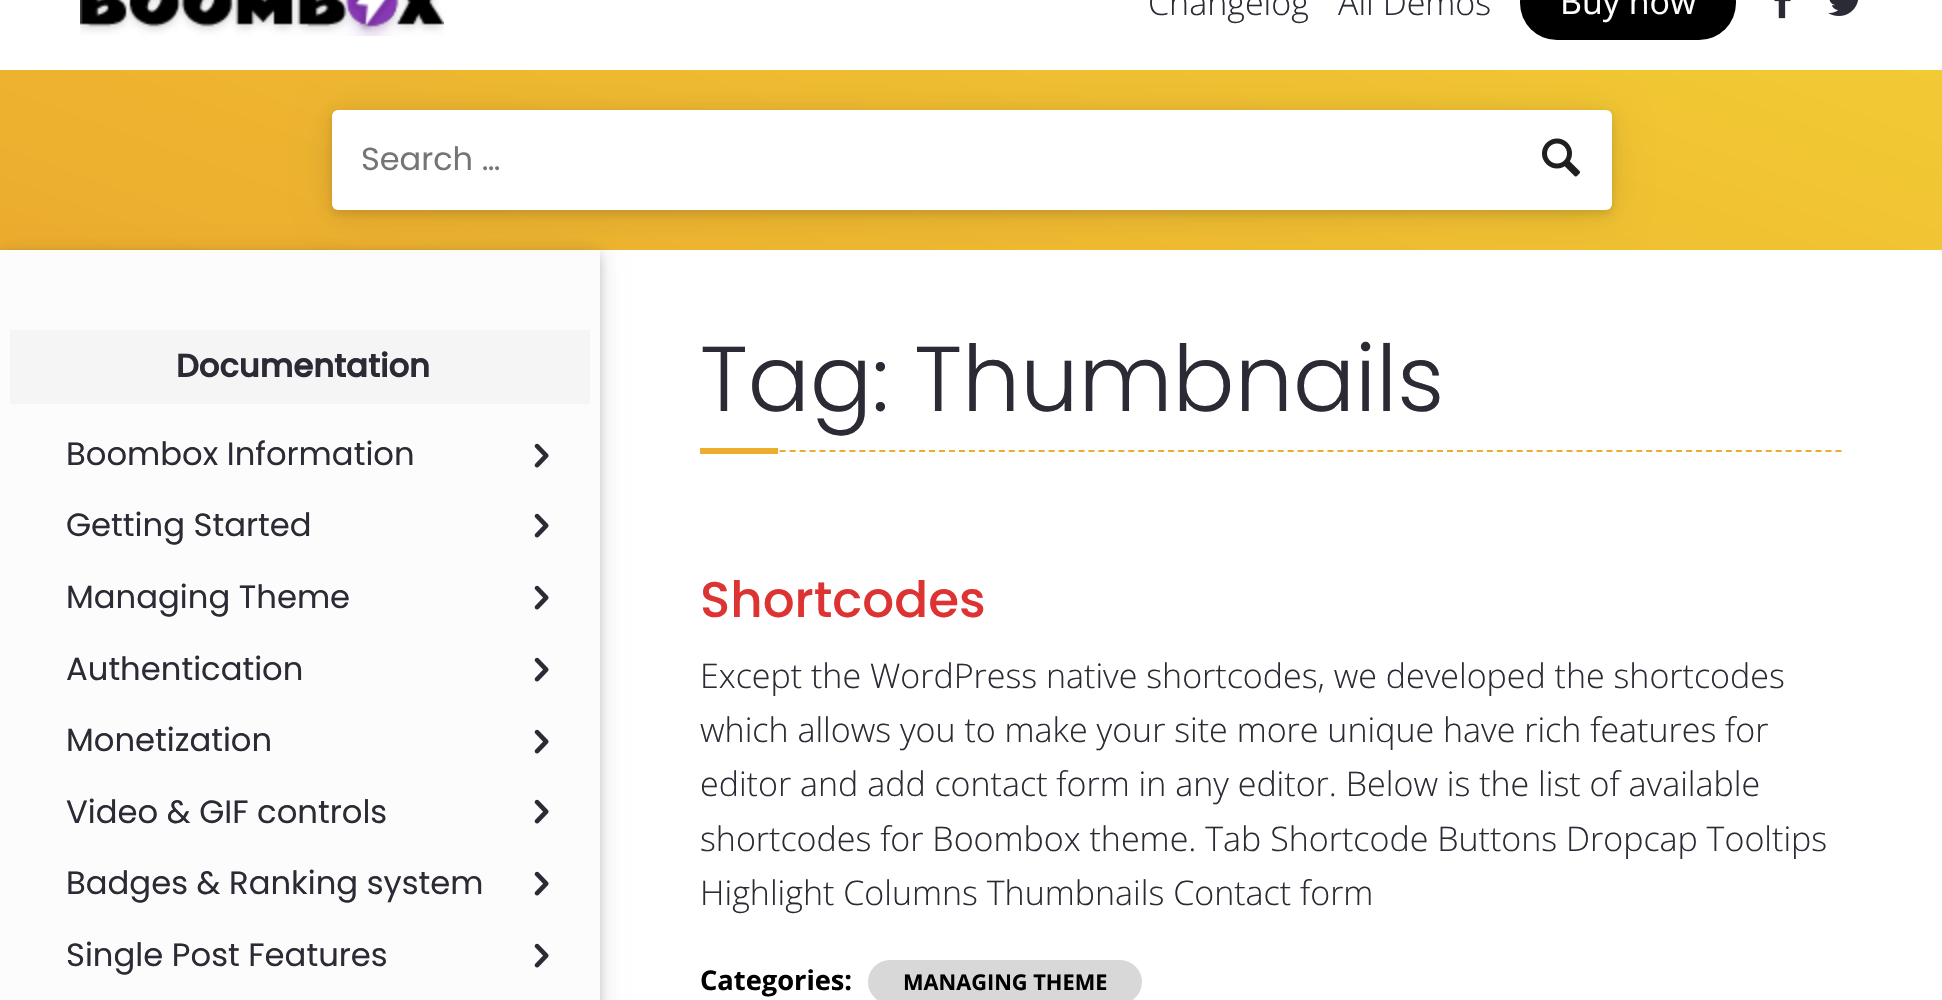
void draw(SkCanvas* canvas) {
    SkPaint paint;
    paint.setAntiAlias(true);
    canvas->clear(0xFFFFFFFF);
    canvas->drawImageRect(SkImages::DeferredFromEncodedData(SkData::MakeFromFileName("img1.png")), SkRect::MakeXYWH(80, 0, 364, 36), SkSamplingOptions());
    SkFont font1(fontMgr->matchFamilyStyle("Open Sans", SkFontStyle(300, SkFontStyle::kNormal_Width, SkFontStyle::kUpright_Slant)), 34);
    font1.setSubpixel(true);
    paint.setColor(0xFF2B2B35);
    canvas->drawString("Changelog", 1148, 15, font1, paint);
    canvas->drawString("All Demos", 1338, 15, font1, paint);
    paint.setColor(0xFF000000);
    canvas->drawRoundRect(SkRect::MakeXYWH(1520, -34, 216, 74), 37, 37, paint);
    SkFont font2(fontMgr->matchFamilyStyle("Open Sans", SkFontStyle::Normal()), 34);
    font2.setSubpixel(true);
    paint.setColor(0xFFFFFFFF);
    canvas->drawString("Buy now", 1560, 14, font2, paint);
    canvas->drawImageRect(SkImages::DeferredFromEncodedData(SkData::MakeFromFileName("img2.png")), SkRect::MakeXYWH(1774, 0, 17, 19), SkSamplingOptions());
    canvas->drawImageRect(SkImages::DeferredFromEncodedData(SkData::MakeFromFileName("img3.png")), SkRect::MakeXYWH(1828, 0, 31, 16), SkSamplingOptions());
    {
        const SkColor colors[] = {0xFFECAC2E, 0xFFF2CA34};
        const float stops[] = {0, 1};
        const SkPoint ends[] = {{828, 552}, {1114, -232}};
        paint.setShader(SkGradientShader::MakeLinear(ends, colors, stops, 2, SkTileMode::kClamp));
        paint.setAlpha(255);
    }
    canvas->drawRect(SkRect::MakeXYWH(0, 70, 1942, 180), paint);
    paint.setShader(nullptr);
    paint.setColor(0x1F000000);
    paint.setMaskFilter(SkMaskFilter::MakeBlur(kNormal_SkBlurStyle, 10));
    canvas->drawRect(SkRect::MakeXYWH(0, 254, 600, 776), paint);
    paint.setMaskFilter(nullptr);
    paint.setColor(0x29000000);
    paint.setMaskFilter(SkMaskFilter::MakeBlur(kNormal_SkBlurStyle, 5));
    canvas->drawRect(SkRect::MakeXYWH(0, 254, 600, 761), paint);
    paint.setMaskFilter(nullptr);
    paint.setColor(0xFFFCFCFC);
    canvas->drawRect(SkRect::MakeXYWH(0, 250, 600, 750), paint);
    paint.setColor(0x1A000000);
    paint.setMaskFilter(SkMaskFilter::MakeBlur(kNormal_SkBlurStyle, 18));
    canvas->drawRoundRect(SkRect::MakeXYWH(332, 114, 1280, 100), 6, 6, paint);
    paint.setMaskFilter(nullptr);
    paint.setColor(0x1F000000);
    paint.setMaskFilter(SkMaskFilter::MakeBlur(kNormal_SkBlurStyle, 5));
    canvas->drawRoundRect(SkRect::MakeXYWH(332, 114, 1280, 100), 6, 6, paint);
    paint.setMaskFilter(nullptr);
    paint.setColor(0xFFFFFFFF);
    canvas->drawRoundRect(SkRect::MakeXYWH(332, 110, 1280, 100), 6, 6, paint);
    SkFont font3(fontMgr->matchFamilyStyle("Poppins", SkFontStyle::Normal()), 32);
    font3.setSubpixel(true);
    paint.setColor(0xFF757575);
    canvas->drawString("Search …", 361, 170, font3, paint);
    canvas->drawImageRect(SkImages::DeferredFromEncodedData(SkData::MakeFromFileName("img4.png")), SkRect::MakeXYWH(1542, 138, 38, 39), SkSamplingOptions());
    paint.setColor(0xFFF5F5F5);
    canvas->drawRect(SkRect::MakeXYWH(10, 330, 580, 74), paint);
    SkFont font4(fontMgr->matchFamilyStyle("Poppins", SkFontStyle::Bold()), 32.25f);
    font4.setSubpixel(true);
    paint.setColor(0xFF2B2B35);
    canvas->drawString("Documentation", 176, 377, font4, paint);
    SkFont font5(fontMgr->matchFamilyStyle("Poppins", SkFontStyle::Normal()), 32.25f);
    font5.setSubpixel(true);
    canvas->drawString("Boombox Information", 66, 465, font5, paint);
    canvas->drawImageRect(SkImages::DeferredFromEncodedData(SkData::MakeFromFileName("img5.png")), SkRect::MakeXYWH(534, 443, 15, 25), SkSamplingOptions());
    canvas->drawString("Getting Started", 66, 536, font5, paint);
    canvas->drawImageRect(SkImages::DeferredFromEncodedData(SkData::MakeFromFileName("img5.png")), SkRect::MakeXYWH(534, 513, 15, 25), SkSamplingOptions());
    canvas->drawString("Managing Theme", 66, 608, font5, paint);
    canvas->drawImageRect(SkImages::DeferredFromEncodedData(SkData::MakeFromFileName("img5.png")), SkRect::MakeXYWH(534, 585, 15, 25), SkSamplingOptions());
    canvas->drawString("Authentication", 66, 680, font5, paint);
    canvas->drawImageRect(SkImages::DeferredFromEncodedData(SkData::MakeFromFileName("img5.png")), SkRect::MakeXYWH(534, 657, 15, 25), SkSamplingOptions());
    canvas->drawString("Monetization", 66, 751, font5, paint);
    canvas->drawImageRect(SkImages::DeferredFromEncodedData(SkData::MakeFromFileName("img5.png")), SkRect::MakeXYWH(534, 729, 15, 25), SkSamplingOptions());
    canvas->drawString("Video & GIF controls", 66, 823, font5, paint);
    canvas->drawImageRect(SkImages::DeferredFromEncodedData(SkData::MakeFromFileName("img5.png")), SkRect::MakeXYWH(534, 799, 15, 25), SkSamplingOptions());
    canvas->drawString("Badges & Ranking system", 66, 894, font5, paint);
    canvas->drawImageRect(SkImages::DeferredFromEncodedData(SkData::MakeFromFileName("img5.png")), SkRect::MakeXYWH(534, 871, 15, 25), SkSamplingOptions());
    canvas->drawString("Single Post Features", 66, 966, font5, paint);
    canvas->drawImageRect(SkImages::DeferredFromEncodedData(SkData::MakeFromFileName("img5.png")), SkRect::MakeXYWH(534, 943, 15, 25), SkSamplingOptions());
    paint.setStyle(SkPaint::kStroke_Style);
    paint.setStrokeWidth(2);
    paint.setColor(0xFFECAC2E);
    paint.setPathEffect(SkDashPathEffect::Make({{6, 3.96f}}, 0));
    canvas->drawPath(SkPathBuilder().moveTo(700, 451).lineTo(1842, 451).detach(), paint);
    paint.setPathEffect(nullptr);
    SkFont font6(fontMgr->matchFamilyStyle("Poppins", SkFontStyle(300, SkFontStyle::kNormal_Width, SkFontStyle::kUpright_Slant)), 92);
    font6.setSubpixel(true);
    paint.setStyle(SkPaint::kFill_Style);
    paint.setColor(0xFF2B2B35);
    canvas->drawString("Tag: Thumbnails", 700, 411, font6, paint);
    paint.setColor(0xFFECAC2E);
    canvas->drawRect(SkRect::MakeXYWH(700, 448, 78, 6), paint);
    SkFont font7(fontMgr->matchFamilyStyle("Poppins", SkFontStyle(500, SkFontStyle::kNormal_Width, SkFontStyle::kUpright_Slant)), 50);
    font7.setSubpixel(true);
    paint.setColor(0xFFDD3333);
    canvas->drawString("Shortcodes", 700, 617, font7, paint);
    paint.setColor(0xFF2B2B35);
    canvas->drawString("Except the WordPress native shortcodes, we developed the shortcodes", 700, 688, font1, paint);
    canvas->drawString("which allows you to make your site more unique have rich features for", 700, 742, font1, paint);
    canvas->drawString("editor and add contact form in any editor. Below is the list of available", 700, 796, font1, paint);
    canvas->drawString("shortcodes for Boombox theme. Tab Shortcode Buttons Dropcap Tooltips", 700, 851, font1, paint);
    canvas->drawString("Highlight Columns Thumbnails Contact form", 700, 905, font1, paint);
    SkFont font8(fontMgr->matchFamilyStyle("Open Sans", SkFontStyle::Bold()), 27.25f);
    font8.setSubpixel(true);
    paint.setColor(0xFF000000);
    canvas->drawString("Categories:", 700, 990, font8, paint);
    paint.setColor(0xFFD8D8D8);
    canvas->drawRoundRect(SkRect::MakeXYWH(868, 960, 274, 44), 22, 22, paint);
    SkFont font9(fontMgr->matchFamilyStyle("Open Sans", SkFontStyle::Bold()), 21.75f);
    font9.setSubpixel(true);
    paint.setColor(0xFF000000);
    canvas->drawString("MANAGING THEME", 903, 990, font9, paint);
}
